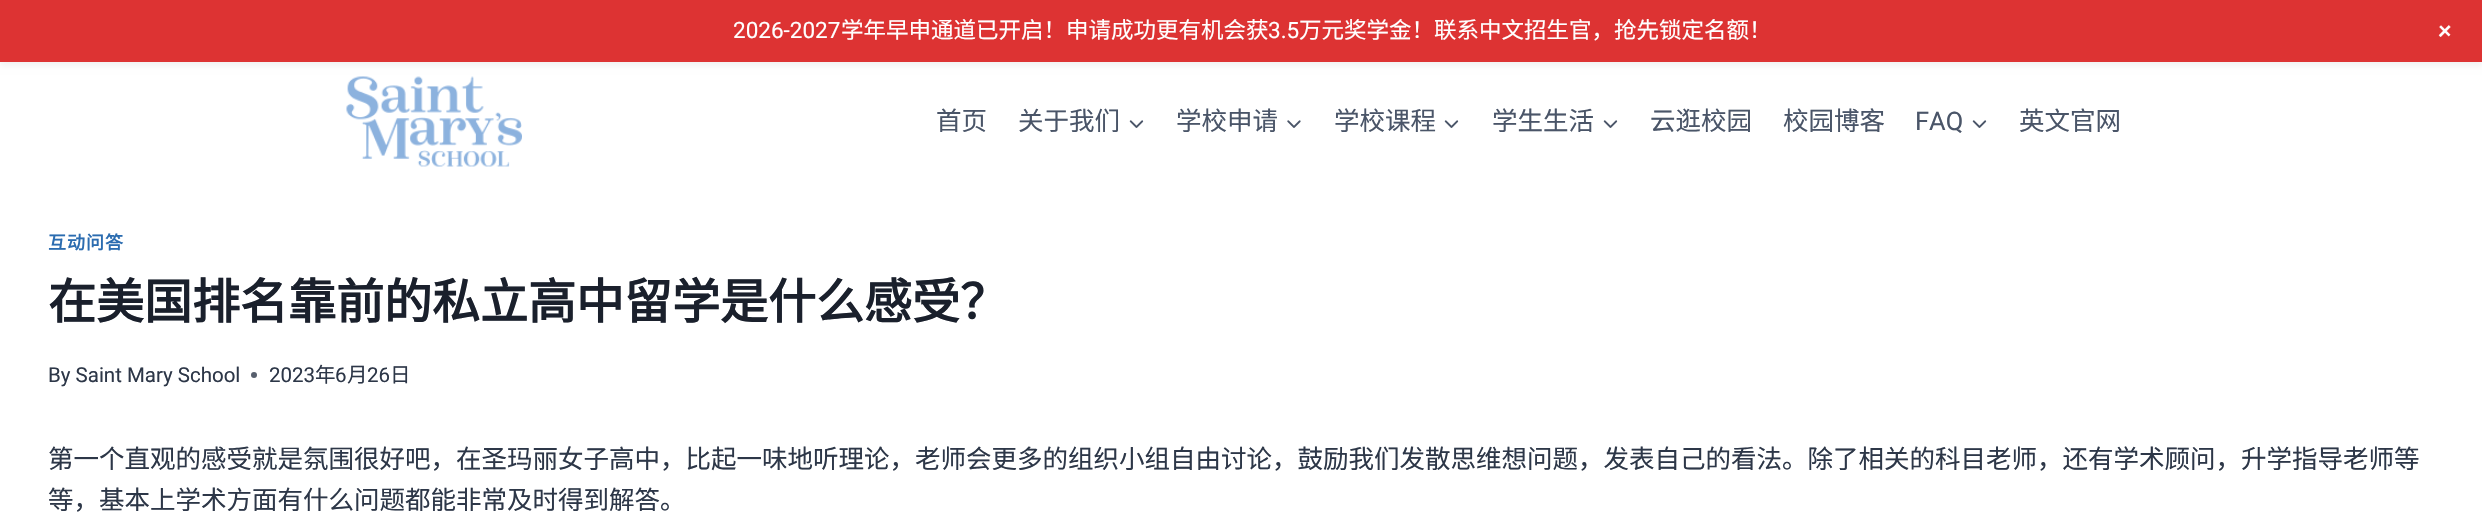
void draw(SkCanvas* canvas) {
    SkPaint paint;
    paint.setAntiAlias(true);
    auto spacedText = [&](const char* s, float x, float y, const SkFont& font, const SkPaint& ink, float letter, float word) {
        std::vector<SkGlyphID> glyphs(font.countText(s, strlen(s), SkTextEncoding::kUTF8));
        std::vector<float> xs(glyphs.size());
        font.textToGlyphs(s, strlen(s), SkTextEncoding::kUTF8, glyphs);
        font.getXPos(glyphs, xs, x);
        float extra = 0;
        for (size_t i = 0; i < glyphs.size(); i++) {
            xs[i] += extra;
            extra += letter + word * (glyphs[i] == font.unicharToGlyph(' '));
        }
        canvas->drawTextBlob(SkTextBlob::MakeFromPosHGlyphs(glyphs, xs, y, font), 0, 0, ink);
    };
    canvas->clear(0xFFFFFFFF);
    paint.setColor(0x0D000000);
    paint.setMaskFilter(SkMaskFilter::MakeBlur(kNormal_SkBlurStyle, 3));
    canvas->drawRect(SkRect::MakeXYWH(0, 5, 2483, 61), paint);
    paint.setMaskFilter(nullptr);
    paint.setColor(0xFFDD3333);
    canvas->drawRect(SkRect::MakeXYWH(0, 0, 2482, 62), paint);
    SkFont font1(fontMgr->matchFamilyStyle("Roboto", SkFontStyle::Normal()), 22.5f);
    font1.setSubpixel(true);
    paint.setColor(0xFFFFFFFF);
    canvas->drawString("2026-2027", 733, 38, font1, paint);
    SkFont font2(fontMgr->matchFamilyStyle("Noto Sans CJK SC", SkFontStyle::Normal()), 22.5f);
    font2.setSubpixel(true);
    canvas->drawString("学年早申通道已开启！申请成功更有机会获", 841, 38, font2, paint);
    canvas->drawString("3.5", 1268, 38, font1, paint);
    canvas->drawString("万元奖学金！联系中文招生官，抢先锁定名额！", 1299, 38, font2, paint);
    SkFont font3(fontMgr->matchFamilyStyle("Roboto", SkFontStyle::Normal()), 27);
    font3.setSubpixel(true);
    canvas->save();
    canvas->rotate(45, 2433, 32);
    canvas->drawString("+", 2433, 32, font3, paint);
    canvas->restore();
    canvas->drawImageRect(SkImages::DeferredFromEncodedData(SkData::MakeFromFileName("img1.png")), SkRect::MakeXYWH(346, 76, 176, 91), SkSamplingOptions());
    SkFont font4(fontMgr->matchFamilyStyle("Noto Sans CJK SC", SkFontStyle::Normal()), 25.5f);
    font4.setSubpixel(true);
    paint.setColor(0xFF4A5568);
    canvas->drawString("首页", 936, 130, font4, paint);
    canvas->drawString("关于我们", 1018, 130, font4, paint);
    canvas->drawImageRect(SkImages::DeferredFromEncodedData(SkData::MakeFromFileName("img2.png")), SkRect::MakeXYWH(1129, 120, 15, 8), SkSamplingOptions());
    canvas->drawString("学校申请", 1176, 130, font4, paint);
    canvas->drawImageRect(SkImages::DeferredFromEncodedData(SkData::MakeFromFileName("img3.png")), SkRect::MakeXYWH(1287, 120, 14, 8), SkSamplingOptions());
    canvas->drawString("学校课程", 1334, 130, font4, paint);
    canvas->drawImageRect(SkImages::DeferredFromEncodedData(SkData::MakeFromFileName("img2.png")), SkRect::MakeXYWH(1444, 120, 15, 8), SkSamplingOptions());
    canvas->drawString("学生生活", 1492, 130, font4, paint);
    canvas->drawImageRect(SkImages::DeferredFromEncodedData(SkData::MakeFromFileName("img2.png")), SkRect::MakeXYWH(1603, 120, 15, 8), SkSamplingOptions());
    canvas->drawString("云逛校园", 1650, 130, font4, paint);
    canvas->drawString("校园博客", 1783, 130, font4, paint);
    SkFont font5(fontMgr->matchFamilyStyle("Roboto", SkFontStyle::Normal()), 25.5f);
    font5.setSubpixel(true);
    canvas->drawString("FAQ", 1915, 130, font5, paint);
    canvas->drawImageRect(SkImages::DeferredFromEncodedData(SkData::MakeFromFileName("img2.png")), SkRect::MakeXYWH(1972, 120, 15, 8), SkSamplingOptions());
    canvas->drawString("英文官网", 2019, 130, font4, paint);
    SkFont font6(fontMgr->matchFamilyStyle("Noto Sans CJK SC", SkFontStyle::Bold()), 18);
    font6.setSubpixel(true);
    paint.setColor(0xFF2B6CB0);
    spacedText("互动问答", 48, 249, font6, paint, 1, 0);
    SkFont font7(fontMgr->matchFamilyStyle("Noto Sans CJK SC", SkFontStyle::Bold()), 48);
    font7.setSubpixel(true);
    paint.setColor(0xFF1A202C);
    canvas->drawString("在美国排名靠前的私立高中留学是什么感受？", 48, 319, font7, paint);
    SkFont font8(fontMgr->matchFamilyStyle("Roboto", SkFontStyle::Normal()), 20.5f);
    font8.setSubpixel(true);
    paint.setColor(0xFF2D3748);
    canvas->drawString("By Saint Mary School", 48, 382, font8, paint);
    paint.setColor(0xFF575F6D);
    canvas->drawCircle(254, 375, 3, paint);
    paint.setColor(0xFF2D3748);
    canvas->drawString("2023", 269, 382, font8, paint);
    SkFont font9(fontMgr->matchFamilyStyle("Noto Sans CJK SC", SkFontStyle::Normal()), 20.5f);
    font9.setSubpixel(true);
    canvas->drawString("年", 315, 382, font9, paint);
    canvas->drawString("6", 335, 382, font8, paint);
    canvas->drawString("月", 347, 382, font9, paint);
    canvas->drawString("26", 367, 382, font8, paint);
    canvas->drawString("日", 390, 382, font9, paint);
    canvas->drawString("第一个直观的感受就是氛围很好吧，在圣玛丽女子高中，比起一味地听理论，老师会更多的组织小组自由讨论，鼓励我们发散思维想问题，发表自己的看法。除了相关的科目老师，还有学术顾问，升学指导老师等", 48, 468, font4, paint);
    canvas->drawString("等，基本上学术方面有什么问题都能非常及时得到解答。", 48, 509, font4, paint);
}
